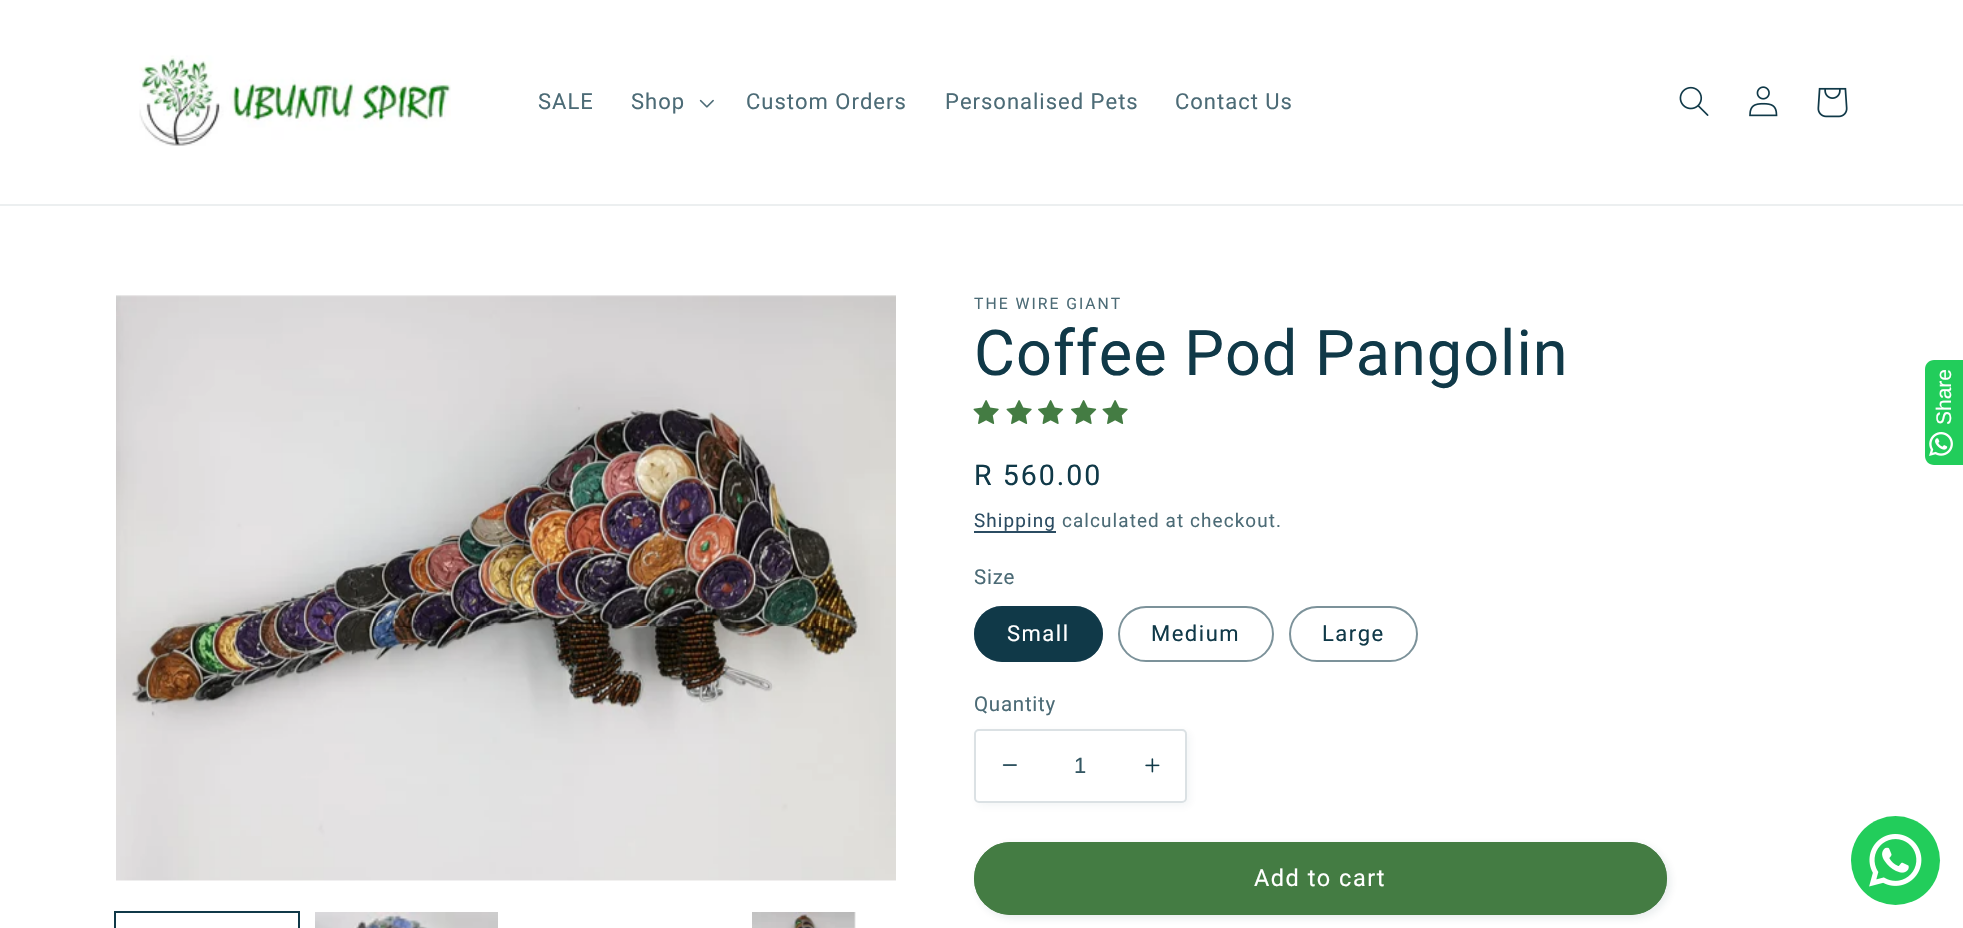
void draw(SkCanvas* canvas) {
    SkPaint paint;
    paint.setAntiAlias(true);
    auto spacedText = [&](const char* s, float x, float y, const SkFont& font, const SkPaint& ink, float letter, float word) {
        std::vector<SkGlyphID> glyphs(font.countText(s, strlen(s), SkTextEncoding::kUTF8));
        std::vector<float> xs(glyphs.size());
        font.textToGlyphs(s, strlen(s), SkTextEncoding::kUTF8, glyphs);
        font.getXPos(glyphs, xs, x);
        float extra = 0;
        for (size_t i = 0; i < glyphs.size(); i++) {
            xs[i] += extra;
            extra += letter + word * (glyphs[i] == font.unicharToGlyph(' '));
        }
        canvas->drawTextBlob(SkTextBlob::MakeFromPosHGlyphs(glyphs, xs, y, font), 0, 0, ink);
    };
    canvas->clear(0xFFFFFFFF);
    paint.setColor(0xFFECEFF0);
    canvas->drawRect(SkRect::MakeXYWH(0, 204, 1963, 2), paint);
    canvas->drawImageRect(SkImages::DeferredFromEncodedData(SkData::MakeFromFileName("img1.png")), SkRect::MakeXYWH(139, 55, 312, 91), SkSamplingOptions());
    SkFont font1(fontMgr->matchFamilyStyle("Roboto", SkFontStyle::Normal()), 22);
    font1.setSubpixel(true);
    paint.setColor(0xFF4C6B76);
    spacedText("SALE", 538, 109, font1, paint, 1, 0);
    spacedText("Shop", 631, 109, font1, paint, 1, 0);
    canvas->drawImageRect(SkImages::DeferredFromEncodedData(SkData::MakeFromFileName("img2.png")), SkRect::MakeXYWH(699, 99, 15, 9), SkSamplingOptions());
    spacedText("Custom Orders", 746, 109, font1, paint, 1, 0);
    spacedText("Personalised Pets", 945, 109, font1, paint, 1, 0);
    spacedText("Contact Us", 1175, 109, font1, paint, 1, 0);
    canvas->drawImageRect(SkImages::DeferredFromEncodedData(SkData::MakeFromFileName("img3.png")), SkRect::MakeXYWH(1679, 86, 30, 30), SkSamplingOptions());
    canvas->drawImageRect(SkImages::DeferredFromEncodedData(SkData::MakeFromFileName("img4.png")), SkRect::MakeXYWH(1749, 86, 29, 31), SkSamplingOptions());
    canvas->drawImageRect(SkImages::DeferredFromEncodedData(SkData::MakeFromFileName("img5.png")), SkRect::MakeXYWH(1817, 87, 31, 31), SkSamplingOptions());
    canvas->drawImageRect(SkImages::DeferredFromEncodedData(SkData::MakeFromFileName("img6.png")), SkRect::MakeXYWH(116, 295, 780, 586), SkSamplingOptions());
    paint.setStyle(SkPaint::kStroke_Style);
    paint.setStrokeWidth(2);
    paint.setColor(0xFF103948);
    canvas->drawRect(SkRect::MakeXYWH(115, 912, 184, 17), paint);
    canvas->drawImageRect(SkImages::DeferredFromEncodedData(SkData::MakeFromFileName("img7.png")), SkRect::MakeXYWH(315, 912, 183, 16), SkSamplingOptions());
    canvas->drawImageRect(SkImages::DeferredFromEncodedData(SkData::MakeFromFileName("img8.png")), SkRect::MakeXYWH(752, 912, 104, 16), SkSamplingOptions());
    SkFont font2(fontMgr->matchFamilyStyle("Roboto", SkFontStyle::Normal()), 15.75f);
    font2.setSubpixel(true);
    paint.setStyle(SkPaint::kFill_Style);
    paint.setColor(0xFF4C6B76);
    spacedText("THE WIRE GIANT", 974, 309, font2, paint, 2, 0);
    SkFont font3(fontMgr->matchFamilyStyle("Roboto", SkFontStyle::Normal()), 63);
    font3.setSubpixel(true);
    paint.setColor(0xFF103948);
    spacedText("Coffee Pod Pangolin", 974, 375, font3, paint, 1, 0);
    canvas->drawImageRect(SkImages::DeferredFromEncodedData(SkData::MakeFromFileName("img9.png")), SkRect::MakeXYWH(973, 400, 26, 24), SkSamplingOptions());
    canvas->drawImageRect(SkImages::DeferredFromEncodedData(SkData::MakeFromFileName("img9.png")), SkRect::MakeXYWH(1006, 400, 26, 24), SkSamplingOptions());
    canvas->drawImageRect(SkImages::DeferredFromEncodedData(SkData::MakeFromFileName("img10.png")), SkRect::MakeXYWH(1038, 400, 26, 24), SkSamplingOptions());
    canvas->drawImageRect(SkImages::DeferredFromEncodedData(SkData::MakeFromFileName("img10.png")), SkRect::MakeXYWH(1071, 400, 26, 24), SkSamplingOptions());
    canvas->drawImageRect(SkImages::DeferredFromEncodedData(SkData::MakeFromFileName("img9.png")), SkRect::MakeXYWH(1102, 400, 26, 24), SkSamplingOptions());
    SkFont font4(fontMgr->matchFamilyStyle("Roboto", SkFontStyle::Normal()), 28.5f);
    font4.setSubpixel(true);
    spacedText("R 560.00", 974, 485, font4, paint, 2, 0);
    SkFont font5(fontMgr->matchFamilyStyle("Roboto", SkFontStyle::Normal()), 18.9f);
    font5.setSubpixel(true);
    paint.setColor(0xFF2B4C62);
    spacedText("Shipping", 974, 527, font5, paint, 1.1f, 0);
    canvas->drawRect(SkRect::MakeXYWH(974, 531, 82, 2), paint);
    paint.setColor(0xFF4C6B76);
    spacedText("calculated at checkout.", 1062, 527, font5, paint, 1.1f, 0);
    SkFont font6(fontMgr->matchFamilyStyle("Roboto", SkFontStyle::Normal()), 20.5f);
    font6.setSubpixel(true);
    spacedText("Size", 974, 584, font6, paint, 0.75f, 0);
    paint.setColor(0xFF103948);
    canvas->drawRoundRect(SkRect::MakeXYWH(974, 606, 129, 56), 28, 28, paint);
    paint.setStyle(SkPaint::kStroke_Style);
    paint.setColor(0x8C103948);
    canvas->drawRoundRect(SkRect::MakeXYWH(975, 607, 127, 54), 27, 27, paint);
    paint.setStyle(SkPaint::kFill_Style);
    paint.setColor(0xFFFFFFFF);
    spacedText("Small", 1007, 641, font1, paint, 1.5f, 0);
    paint.setStyle(SkPaint::kStroke_Style);
    paint.setColor(0xFF7C929A);
    canvas->drawRoundRect(SkRect::MakeXYWH(1119, 607, 154, 54), 27, 27, paint);
    paint.setStyle(SkPaint::kFill_Style);
    paint.setColor(0xFF103948);
    spacedText("Medium", 1151, 641, font1, paint, 1.5f, 0);
    paint.setStyle(SkPaint::kStroke_Style);
    paint.setColor(0xFF7C929A);
    canvas->drawRoundRect(SkRect::MakeXYWH(1290, 607, 127, 54), 27, 27, paint);
    paint.setStyle(SkPaint::kFill_Style);
    paint.setColor(0xFF103948);
    spacedText("Large", 1322, 641, font1, paint, 1.5f, 0);
    paint.setColor(0xFF4C6B76);
    spacedText("Quantity", 974, 711, font6, paint, 0.75f, 0);
    paint.setColor(0x0D103948);
    paint.setMaskFilter(SkMaskFilter::MakeBlur(kNormal_SkBlurStyle, 4));
    canvas->drawRoundRect(SkRect::MakeXYWH(977, 732, 213, 74), 5, 5, paint);
    paint.setMaskFilter(nullptr);
    paint.setColor(0xFFFFFFFF);
    canvas->drawRoundRect(SkRect::MakeXYWH(974, 729, 213, 74), 5, 5, paint);
    canvas->drawImageRect(SkImages::DeferredFromEncodedData(SkData::MakeFromFileName("img11.png")), SkRect::MakeXYWH(1002, 764, 15, 2), SkSamplingOptions());
    canvas->drawImageRect(SkImages::DeferredFromEncodedData(SkData::MakeFromFileName("img12.png")), SkRect::MakeXYWH(1145, 758, 15, 15), SkSamplingOptions());
    paint.setStyle(SkPaint::kStroke_Style);
    paint.setColor(0x26103948);
    canvas->drawRoundRect(SkRect::MakeXYWH(975, 730, 211, 72), 4, 4, paint);
    SkFont font7(fontMgr->matchFamilyStyle("Liberation Sans", SkFontStyle::Normal()), 22);
    font7.setSubpixel(true);
    paint.setStyle(SkPaint::kFill_Style);
    paint.setColor(0xFF345763);
    canvas->drawString("1", 1074, 773, font7, paint);
    paint.setColor(0x1A103948);
    paint.setMaskFilter(SkMaskFilter::MakeBlur(kNormal_SkBlurStyle, 4));
    canvas->drawRoundRect(SkRect::MakeXYWH(977, 845, 693, 73), 36.5f, 36.5f, paint);
    paint.setMaskFilter(nullptr);
    paint.setColor(0xFF447C43);
    canvas->drawRoundRect(SkRect::MakeXYWH(974, 842, 693, 73), 36.5f, 36.5f, paint);
    paint.setStyle(SkPaint::kStroke_Style);
    canvas->drawRoundRect(SkRect::MakeXYWH(975, 843, 691, 71), 35.5f, 35.5f, paint);
    SkFont font8(fontMgr->matchFamilyStyle("Roboto", SkFontStyle::Normal()), 23.5f);
    font8.setSubpixel(true);
    paint.setStyle(SkPaint::kFill_Style);
    paint.setColor(0xFFFFFFFF);
    spacedText("Add to cart", 1254, 886, font8, paint, 1.5f, 0);
    paint.setColor(0xFF22CD5B);
    canvas->drawPath(SkPathBuilder().moveTo(1934, 360).lineTo(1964, 360).lineTo(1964, 465).lineTo(1934, 465).cubicTo(1929, 465, 1925, 461, 1925, 456).lineTo(1925, 369).cubicTo(1925, 364, 1929, 360, 1934, 360).close().detach(), paint);
    SkFont font9(fontMgr->matchFamilyStyle("Liberation Sans", SkFontStyle::Normal()), 21);
    font9.setSubpixel(true);
    paint.setColor(0xFFFFFFFF);
    canvas->save();
    canvas->rotate(-90, 1951, 425);
    canvas->drawString("Share", 1951, 425, font9, paint);
    canvas->restore();
    canvas->drawImageRect(SkImages::DeferredFromEncodedData(SkData::MakeFromFileName("img13.png")), SkRect::MakeXYWH(1929, 432, 24, 24), SkSamplingOptions());
    paint.setColor(0xFF22CD5B);
    canvas->drawCircle(1895.5f, 860.5f, 44.5f, paint);
    canvas->drawImageRect(SkImages::DeferredFromEncodedData(SkData::MakeFromFileName("img14.png")), SkRect::MakeXYWH(1869, 834, 53, 53), SkSamplingOptions());
}
